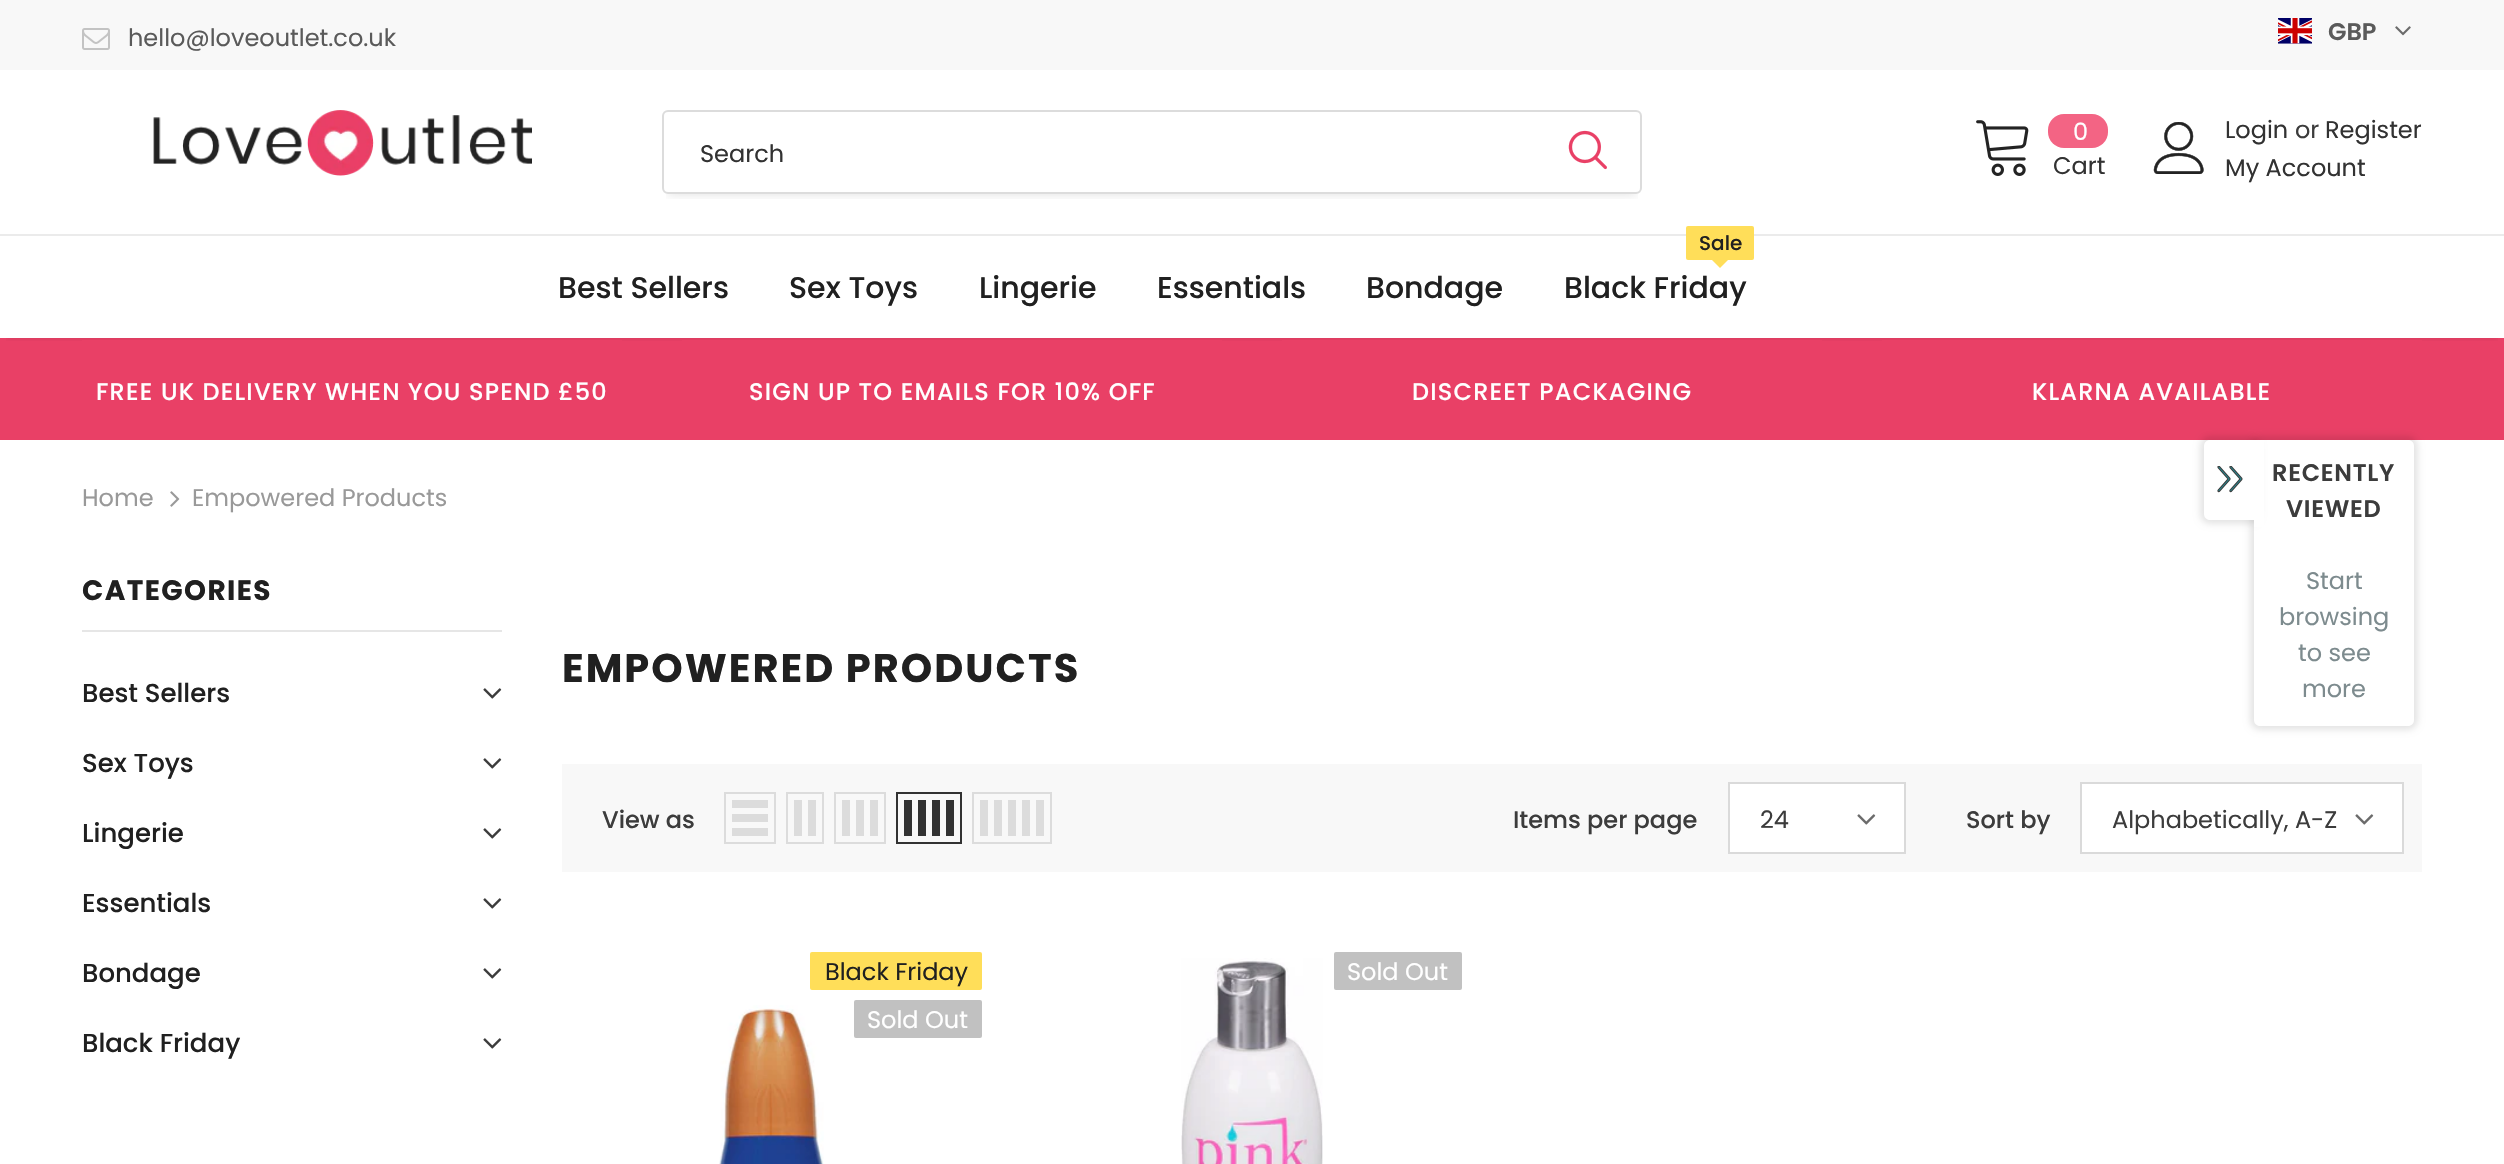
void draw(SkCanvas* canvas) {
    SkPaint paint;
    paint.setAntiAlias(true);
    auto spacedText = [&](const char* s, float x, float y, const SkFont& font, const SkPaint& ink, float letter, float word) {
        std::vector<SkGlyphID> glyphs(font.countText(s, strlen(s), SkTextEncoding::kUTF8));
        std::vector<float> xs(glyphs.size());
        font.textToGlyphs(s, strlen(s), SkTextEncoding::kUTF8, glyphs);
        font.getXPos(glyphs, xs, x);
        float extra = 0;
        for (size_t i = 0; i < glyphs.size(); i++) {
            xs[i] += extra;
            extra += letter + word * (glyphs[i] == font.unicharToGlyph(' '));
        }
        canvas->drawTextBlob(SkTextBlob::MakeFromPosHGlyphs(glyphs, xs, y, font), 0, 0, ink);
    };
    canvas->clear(0xFFFFFFFF);
    paint.setColor(0xFFF8F8F8);
    canvas->drawRect(SkRect::MakeXYWH(0, 0, 2504, 70), paint);
    canvas->drawImageRect(SkImages::DeferredFromEncodedData(SkData::MakeFromFileName("img1.png")), SkRect::MakeXYWH(82, 28, 28, 22), SkSamplingOptions());
    SkFont font1(fontMgr->matchFamilyStyle("Poppins", SkFontStyle::Normal()), 24);
    font1.setSubpixel(true);
    paint.setColor(0xFF5A5A5A);
    canvas->drawString("hello@loveoutlet.co.uk", 128, 46, font1, paint);
    canvas->drawImageRect(SkImages::DeferredFromEncodedData(SkData::MakeFromFileName("img2.png")), SkRect::MakeXYWH(2278, 18, 34, 26), SkSamplingOptions());
    SkFont font2(fontMgr->matchFamilyStyle("Poppins", SkFontStyle(600, SkFontStyle::kNormal_Width, SkFontStyle::kUpright_Slant)), 24);
    font2.setSubpixel(true);
    canvas->drawString("GBP", 2328, 40, font2, paint);
    canvas->drawImageRect(SkImages::DeferredFromEncodedData(SkData::MakeFromFileName("img3.png")), SkRect::MakeXYWH(2395, 26, 16, 10), SkSamplingOptions());
    paint.setColor(0xFFEBEBEB);
    canvas->drawRect(SkRect::MakeXYWH(0, 234, 2504, 2), paint);
    canvas->drawImageRect(SkImages::DeferredFromEncodedData(SkData::MakeFromFileName("img4.png")), SkRect::MakeXYWH(153, 110, 379, 66), SkSamplingOptions());
    canvas->save();
    canvas->clipRect(SkRect::MakeXYWH(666, 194, 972, 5));
    paint.setColor(0x1F000000);
    paint.setMaskFilter(SkMaskFilter::MakeBlur(kNormal_SkBlurStyle, 5));
    canvas->drawRect(SkRect::MakeXYWH(668, 122, 968, 72), paint);
    paint.setMaskFilter(nullptr);
    canvas->restore();
    paint.setStyle(SkPaint::kStroke_Style);
    paint.setStrokeWidth(2);
    paint.setColor(0xFFDCDCDC);
    canvas->drawRoundRect(SkRect::MakeXYWH(663, 111, 978, 82), 5, 5, paint);
    paint.setStyle(SkPaint::kFill_Style);
    paint.setColor(0xFF323232);
    canvas->drawString("Search", 700, 162, font1, paint);
    canvas->drawImageRect(SkImages::DeferredFromEncodedData(SkData::MakeFromFileName("img5.png")), SkRect::MakeXYWH(1568, 130, 39, 40), SkSamplingOptions());
    canvas->drawImageRect(SkImages::DeferredFromEncodedData(SkData::MakeFromFileName("img6.png")), SkRect::MakeXYWH(1976, 120, 53, 56), SkSamplingOptions());
    paint.setColor(0xFFF36484);
    canvas->drawRoundRect(SkRect::MakeXYWH(2048, 114, 60, 34), 16, 16, paint);
    paint.setColor(0xFFFFFFFF);
    canvas->drawString("0", 2073, 140, font1, paint);
    paint.setColor(0xFF323232);
    canvas->drawString("Cart", 2053, 174, font1, paint);
    canvas->drawImageRect(SkImages::DeferredFromEncodedData(SkData::MakeFromFileName("img7.png")), SkRect::MakeXYWH(2153, 122, 51, 52), SkSamplingOptions());
    canvas->drawString("Login", 2225, 138, font1, paint);
    paint.setColor(0xFF3C3C3C);
    canvas->drawString("or", 2295, 138, font1, paint);
    paint.setColor(0xFF323232);
    canvas->drawString("Register", 2325, 138, font1, paint);
    canvas->drawString("My Account", 2225, 176, font1, paint);
    paint.setColor(0xFFE94066);
    canvas->drawRect(SkRect::MakeXYWH(0, 338, 2504, 102), paint);
    canvas->save();
    canvas->clipRect(SkRect::MakeXYWH(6, 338, 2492, 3));
    paint.setColor(0x1A000000);
    paint.setMaskFilter(SkMaskFilter::MakeBlur(kNormal_SkBlurStyle, 3));
    canvas->drawRect(SkRect::MakeXYWH(6, 248, 2492, 90), paint);
    paint.setMaskFilter(nullptr);
    canvas->restore();
    SkFont font3(fontMgr->matchFamilyStyle("Poppins", SkFontStyle(500, SkFontStyle::kNormal_Width, SkFontStyle::kUpright_Slant)), 30);
    font3.setSubpixel(true);
    paint.setColor(0xFF202020);
    canvas->drawString("Best Sellers", 558, 298, font3, paint);
    canvas->drawString("Sex Toys", 789, 298, font3, paint);
    canvas->drawString("Lingerie", 979, 298, font3, paint);
    canvas->drawString("Essentials", 1157, 298, font3, paint);
    canvas->drawString("Bondage", 1366, 298, font3, paint);
    paint.setColor(0xFFFFDE59);
    canvas->drawRoundRect(SkRect::MakeXYWH(1686, 226, 68, 34), 2, 2, paint);
    SkFont font4(fontMgr->matchFamilyStyle("Poppins", SkFontStyle(500, SkFontStyle::kNormal_Width, SkFontStyle::kUpright_Slant)), 20);
    font4.setSubpixel(true);
    paint.setColor(0xFF202020);
    canvas->drawString("Sale", 1699, 250, font4, paint);
    paint.setColor(0xFFFFDE59);
    canvas->drawPath(SkPathBuilder().moveTo(1710, 258).lineTo(1730, 258).lineTo(1720, 268).close().detach(), paint);
    paint.setColor(0xFF202020);
    canvas->drawString("Black Friday", 1564, 298, font3, paint);
    paint.setColor(0xFFE94066);
    canvas->drawRect(SkRect::MakeXYWH(82, 340, 540, 2), paint);
    SkFont font5(fontMgr->matchFamilyStyle("Poppins", SkFontStyle(500, SkFontStyle::kNormal_Width, SkFontStyle::kUpright_Slant)), 24);
    font5.setSubpixel(true);
    paint.setColor(0xFFFFFFFF);
    spacedText("FREE UK DELIVERY WHEN YOU SPEND £50", 96, 400, font5, paint, 1.2f, 0);
    paint.setColor(0xFFE94066);
    canvas->drawRect(SkRect::MakeXYWH(682, 340, 540, 2), paint);
    paint.setColor(0xFFFFFFFF);
    spacedText("SIGN UP TO EMAILS FOR 10% OFF", 749, 400, font5, paint, 1.2f, 0);
    paint.setColor(0xFFE94066);
    canvas->drawRect(SkRect::MakeXYWH(1282, 340, 540, 2), paint);
    paint.setColor(0xFFFFFFFF);
    spacedText("DISCREET PACKAGING", 1412, 400, font5, paint, 1.2f, 0);
    paint.setColor(0xFFE94066);
    canvas->drawRect(SkRect::MakeXYWH(1882, 340, 540, 2), paint);
    paint.setColor(0xFFFFFFFF);
    spacedText("KLARNA AVAILABLE", 2032, 400, font5, paint, 1.2f, 0);
    paint.setColor(0x1A000000);
    paint.setMaskFilter(SkMaskFilter::MakeBlur(kNormal_SkBlurStyle, 3));
    canvas->drawRoundRect(SkRect::MakeXYWH(2250, 436, 168, 294), 10, 10, paint);
    paint.setMaskFilter(nullptr);
    paint.setColor(0xFFFFFFFF);
    canvas->drawPath(SkPathBuilder().moveTo(2254, 440).lineTo(2408, 440).cubicTo(2411.5f, 440, 2414, 442.5f, 2414, 446).lineTo(2414, 720).cubicTo(2414, 723.5f, 2411.5f, 726, 2408, 726).lineTo(2260, 726).cubicTo(2256.5f, 726, 2254, 723.5f, 2254, 720).close().detach(), paint);
    paint.setColor(0x1A000000);
    paint.setMaskFilter(SkMaskFilter::MakeBlur(kNormal_SkBlurStyle, 3));
    canvas->drawRoundRect(SkRect::MakeXYWH(2200, 436, 60, 88), 10, 10, paint);
    paint.setMaskFilter(nullptr);
    paint.setColor(0xFFFFFFFF);
    canvas->drawPath(SkPathBuilder().moveTo(2210, 440).lineTo(2256, 440).lineTo(2256, 520).lineTo(2210, 520).cubicTo(2206.5f, 520, 2204, 517.5f, 2204, 514).lineTo(2204, 446).cubicTo(2204, 442.5f, 2206.5f, 440, 2210, 440).close().detach(), paint);
    canvas->drawImageRect(SkImages::DeferredFromEncodedData(SkData::MakeFromFileName("img8.png")), SkRect::MakeXYWH(2217, 466, 26, 27), SkSamplingOptions());
    canvas->drawRect(SkRect::MakeXYWH(2254, 440, 10, 87), paint);
    paint.setColor(0xFF3C3C3C);
    spacedText("RECENTLY", 2272, 481, font2, paint, 0.75f, 0);
    spacedText("VIEWED", 2286, 517, font2, paint, 0.75f, 0);
    paint.setColor(0xFF7D8B8E);
    canvas->drawString("Start", 2306, 589, font1, paint);
    canvas->drawString("browsing", 2279, 625, font1, paint);
    canvas->drawString("to see", 2298, 661, font1, paint);
    canvas->drawString("more", 2302, 697, font1, paint);
    paint.setColor(0xFF999999);
    canvas->drawString("Home", 82, 506, font1, paint);
    canvas->drawImageRect(SkImages::DeferredFromEncodedData(SkData::MakeFromFileName("img9.png")), SkRect::MakeXYWH(170, 491, 10, 16), SkSamplingOptions());
    canvas->drawString("Empowered Products", 192, 506, font1, paint);
    paint.setColor(0xFFE6E6E6);
    canvas->drawRect(SkRect::MakeXYWH(82, 630, 420, 2), paint);
    SkFont font6(fontMgr->matchFamilyStyle("Poppins", SkFontStyle::Bold()), 28);
    font6.setSubpixel(true);
    paint.setColor(0xFF202020);
    spacedText("CATEGORIES", 82, 600, font6, paint, 1.4f, 0);
    SkFont font7(fontMgr->matchFamilyStyle("Poppins", SkFontStyle(500, SkFontStyle::kNormal_Width, SkFontStyle::kUpright_Slant)), 26);
    font7.setSubpixel(true);
    canvas->drawString("Best Sellers", 82, 702, font7, paint);
    canvas->drawImageRect(SkImages::DeferredFromEncodedData(SkData::MakeFromFileName("img10.png")), SkRect::MakeXYWH(483, 688, 19, 11), SkSamplingOptions());
    canvas->drawString("Sex Toys", 82, 772, font7, paint);
    canvas->drawImageRect(SkImages::DeferredFromEncodedData(SkData::MakeFromFileName("img10.png")), SkRect::MakeXYWH(483, 758, 19, 11), SkSamplingOptions());
    canvas->drawString("Lingerie", 82, 842, font7, paint);
    canvas->drawImageRect(SkImages::DeferredFromEncodedData(SkData::MakeFromFileName("img10.png")), SkRect::MakeXYWH(483, 828, 19, 11), SkSamplingOptions());
    canvas->drawString("Essentials", 82, 912, font7, paint);
    canvas->drawImageRect(SkImages::DeferredFromEncodedData(SkData::MakeFromFileName("img10.png")), SkRect::MakeXYWH(483, 898, 19, 11), SkSamplingOptions());
    canvas->drawString("Bondage", 82, 982, font7, paint);
    canvas->drawImageRect(SkImages::DeferredFromEncodedData(SkData::MakeFromFileName("img10.png")), SkRect::MakeXYWH(483, 968, 19, 11), SkSamplingOptions());
    canvas->drawString("Black Friday", 82, 1052, font7, paint);
    canvas->drawImageRect(SkImages::DeferredFromEncodedData(SkData::MakeFromFileName("img10.png")), SkRect::MakeXYWH(483, 1038, 19, 11), SkSamplingOptions());
    SkFont font8(fontMgr->matchFamilyStyle("Poppins", SkFontStyle::Bold()), 40);
    font8.setSubpixel(true);
    spacedText("EMPOWERED PRODUCTS", 562, 682, font8, paint, 2, 0);
    paint.setColor(0xFFF8F8F8);
    canvas->drawRect(SkRect::MakeXYWH(562, 764, 1860, 108), paint);
    paint.setColor(0xFF3C3C3C);
    canvas->drawString("View as", 602, 828, font5, paint);
    paint.setStyle(SkPaint::kStroke_Style);
    paint.setColor(0xFFDCDCDC);
    canvas->drawRect(SkRect::MakeXYWH(725, 793, 50, 50), paint);
    paint.setStyle(SkPaint::kFill_Style);
    canvas->drawRect(SkRect::MakeXYWH(732, 828, 36, 8), paint);
    canvas->drawRect(SkRect::MakeXYWH(732, 814, 36, 8), paint);
    canvas->drawRect(SkRect::MakeXYWH(732, 800, 36, 8), paint);
    paint.setStyle(SkPaint::kStroke_Style);
    canvas->drawRect(SkRect::MakeXYWH(787, 793, 36, 50), paint);
    paint.setStyle(SkPaint::kFill_Style);
    canvas->drawRect(SkRect::MakeXYWH(808, 800, 8, 36), paint);
    canvas->drawRect(SkRect::MakeXYWH(794, 800, 8, 36), paint);
    paint.setStyle(SkPaint::kStroke_Style);
    canvas->drawRect(SkRect::MakeXYWH(835, 793, 50, 50), paint);
    paint.setStyle(SkPaint::kFill_Style);
    canvas->drawRect(SkRect::MakeXYWH(870, 800, 8, 36), paint);
    canvas->drawRect(SkRect::MakeXYWH(856, 800, 8, 36), paint);
    canvas->drawRect(SkRect::MakeXYWH(842, 800, 8, 36), paint);
    paint.setStyle(SkPaint::kStroke_Style);
    paint.setColor(0xFF323232);
    canvas->drawRect(SkRect::MakeXYWH(897, 793, 64, 50), paint);
    paint.setStyle(SkPaint::kFill_Style);
    canvas->drawRect(SkRect::MakeXYWH(946, 800, 8, 36), paint);
    canvas->drawRect(SkRect::MakeXYWH(932, 800, 8, 36), paint);
    canvas->drawRect(SkRect::MakeXYWH(918, 800, 8, 36), paint);
    canvas->drawRect(SkRect::MakeXYWH(904, 800, 8, 36), paint);
    paint.setStyle(SkPaint::kStroke_Style);
    paint.setColor(0xFFDCDCDC);
    canvas->drawRect(SkRect::MakeXYWH(973, 793, 78, 50), paint);
    paint.setStyle(SkPaint::kFill_Style);
    canvas->drawRect(SkRect::MakeXYWH(1036, 800, 8, 36), paint);
    canvas->drawRect(SkRect::MakeXYWH(1022, 800, 8, 36), paint);
    canvas->drawRect(SkRect::MakeXYWH(1008, 800, 8, 36), paint);
    canvas->drawRect(SkRect::MakeXYWH(994, 800, 8, 36), paint);
    canvas->drawRect(SkRect::MakeXYWH(980, 800, 8, 36), paint);
    paint.setColor(0xFF3C3C3C);
    canvas->drawString("Items per page", 1513, 828, font5, paint);
    paint.setColor(0xFFFFFFFF);
    canvas->drawRect(SkRect::MakeXYWH(1729, 783, 176, 70), paint);
    paint.setStyle(SkPaint::kStroke_Style);
    paint.setColor(0xFFDADADA);
    canvas->drawRect(SkRect::MakeXYWH(1729, 783, 176, 70), paint);
    paint.setStyle(SkPaint::kFill_Style);
    paint.setColor(0xFF3C3C3C);
    canvas->drawString("24", 1760, 828, font1, paint);
    canvas->drawImageRect(SkImages::DeferredFromEncodedData(SkData::MakeFromFileName("img11.png")), SkRect::MakeXYWH(1857, 814, 19, 11), SkSamplingOptions());
    canvas->drawString("Sort by", 1966, 828, font5, paint);
    paint.setColor(0xFFFFFFFF);
    canvas->drawRect(SkRect::MakeXYWH(2081, 783, 322, 70), paint);
    paint.setStyle(SkPaint::kStroke_Style);
    paint.setColor(0xFFDADADA);
    canvas->drawRect(SkRect::MakeXYWH(2081, 783, 322, 70), paint);
    paint.setStyle(SkPaint::kFill_Style);
    paint.setColor(0xFF3C3C3C);
    canvas->drawString("Alphabetically, A-Z", 2112, 828, font1, paint);
    canvas->drawImageRect(SkImages::DeferredFromEncodedData(SkData::MakeFromFileName("img11.png")), SkRect::MakeXYWH(2355, 814, 19, 11), SkSamplingOptions());
    paint.setColor(0xFFFFDE59);
    canvas->drawRoundRect(SkRect::MakeXYWH(810, 952, 172, 38), 2, 2, paint);
    paint.setColor(0xFF202020);
    canvas->drawString("Black Friday", 825, 980, font1, paint);
    paint.setColor(0xFFC1C1C1);
    canvas->drawRoundRect(SkRect::MakeXYWH(854, 1000, 128, 38), 2, 2, paint);
    paint.setColor(0xFFFFFFFF);
    canvas->drawString("Sold Out", 867, 1028, font1, paint);
    canvas->drawImageRect(SkImages::DeferredFromEncodedData(SkData::MakeFromFileName("img12.png")), SkRect::MakeXYWH(719, 1005, 105, 159), SkSamplingOptions());
    canvas->drawImageRect(SkImages::DeferredFromEncodedData(SkData::MakeFromFileName("img13.png")), SkRect::MakeXYWH(1181, 958, 142, 206), SkSamplingOptions());
    paint.setColor(0xFFC1C1C1);
    canvas->drawRoundRect(SkRect::MakeXYWH(1334, 952, 128, 38), 2, 2, paint);
    paint.setColor(0xFFFFFFFF);
    canvas->drawString("Sold Out", 1347, 980, font1, paint);
}
